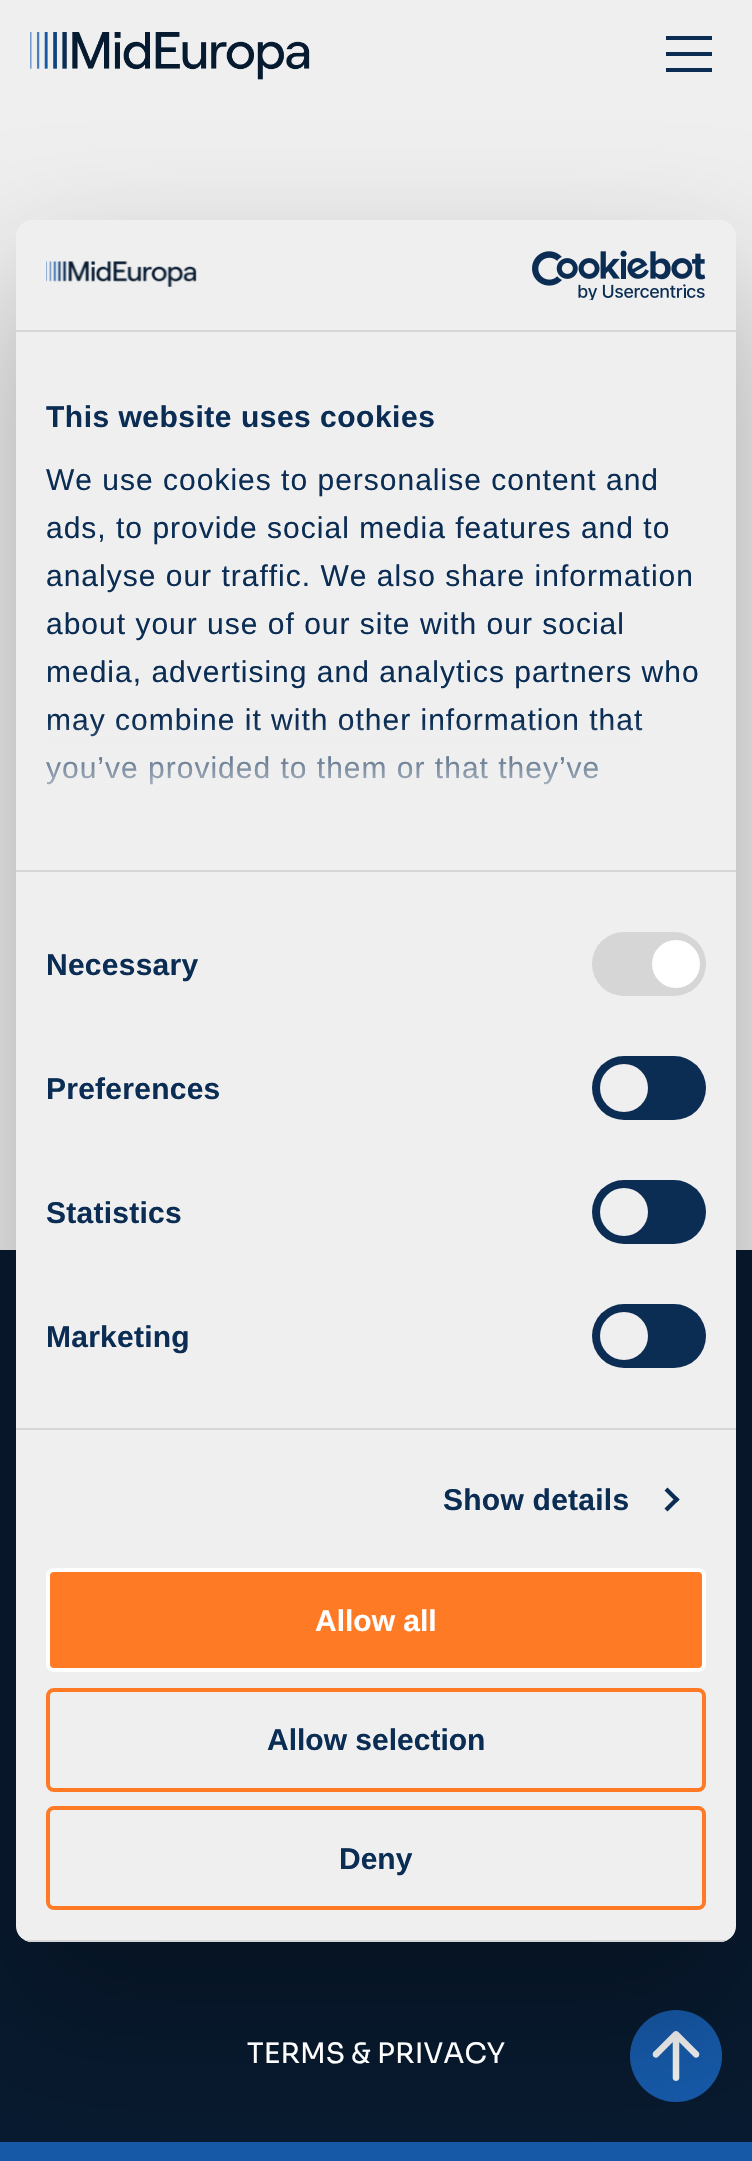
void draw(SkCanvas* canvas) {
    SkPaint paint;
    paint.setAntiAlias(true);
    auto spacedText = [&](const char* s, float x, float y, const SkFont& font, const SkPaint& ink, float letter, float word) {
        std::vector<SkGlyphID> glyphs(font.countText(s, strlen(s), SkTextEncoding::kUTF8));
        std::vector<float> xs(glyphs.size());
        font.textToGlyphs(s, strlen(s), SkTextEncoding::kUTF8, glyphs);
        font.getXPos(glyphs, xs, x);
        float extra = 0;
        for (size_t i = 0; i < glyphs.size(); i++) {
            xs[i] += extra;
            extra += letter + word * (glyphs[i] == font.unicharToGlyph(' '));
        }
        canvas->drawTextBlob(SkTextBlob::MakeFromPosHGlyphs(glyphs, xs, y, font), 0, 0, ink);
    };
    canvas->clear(0xFFEFEFEF);
    canvas->drawImageRect(SkImages::DeferredFromEncodedData(SkData::MakeFromFileName("img3.png")), SkRect::MakeXYWH(30, 32, 280, 48), SkSamplingOptions());
    paint.setColor(0xFF081A2F);
    canvas->drawRect(SkRect::MakeXYWH(0, 1250, 752, 892), paint);
    paint.setColor(0xFF1659A8);
    canvas->drawRect(SkRect::MakeXYWH(0, 2142, 752, 19), paint);
    canvas->drawCircle(676, 2056, 46, paint);
    canvas->drawImageRect(SkImages::DeferredFromEncodedData(SkData::MakeFromFileName("img4.png")), SkRect::MakeXYWH(652, 2031, 48, 50), SkSamplingOptions());
    paint.setColor(0x4D000000);
    paint.setMaskFilter(SkMaskFilter::MakeBlur(kNormal_SkBlurStyle, 68));
    canvas->drawRoundRect(SkRect::MakeXYWH(16, 284, 720, 1722), 16, 16, paint);
    paint.setMaskFilter(nullptr);
    paint.setColor(0xFFEFEFEF);
    canvas->drawRoundRect(SkRect::MakeXYWH(16, 220, 720, 1722), 16, 16, paint);
    paint.setColor(0xFFD6D6D6);
    canvas->drawRect(SkRect::MakeXYWH(16, 330, 720, 2), paint);
    canvas->drawImageRect(SkImages::DeferredFromEncodedData(SkData::MakeFromFileName("img1.png")), SkRect::MakeXYWH(46, 261, 151, 26), SkSamplingOptions());
    canvas->drawImageRect(SkImages::DeferredFromEncodedData(SkData::MakeFromFileName("img2.png")), SkRect::MakeXYWH(532, 250, 174, 50), SkSamplingOptions());
    canvas->drawRect(SkRect::MakeXYWH(16, 870, 720, 2), paint);
    SkFont font1(fontMgr->matchFamilyStyle("Liberation Sans", SkFontStyle::Bold()), 30);
    font1.setSubpixel(true);
    paint.setColor(0xFF0B2D54);
    spacedText("This website uses cookies", 46, 427, font1, paint, 0.5f, 0);
    SkFont font2(fontMgr->matchFamilyStyle("Liberation Sans", SkFontStyle::Normal()), 30);
    font2.setSubpixel(true);
    spacedText("We use cookies to personalise content and", 46, 490, font2, paint, 1, 0);
    spacedText("ads, to provide social media features and to", 46, 538, font2, paint, 1, 0);
    spacedText("analyse our traffic. We also share information", 46, 586, font2, paint, 1, 0);
    spacedText("about your use of our site with our social", 46, 634, font2, paint, 1, 0);
    spacedText("media, advertising and analytics partners who", 46, 682, font2, paint, 1, 0);
    spacedText("may combine it with other information that", 46, 730, font2, paint, 1, 0);
    spacedText("you’ve provided to them or that they’ve", 46, 778, font2, paint, 1, 0);
    {
        const SkColor colors[] = {0xFFEFEFEF, 0xCCEFEFEF, 0x00EFEFEF};
        const float stops[] = {0, 0.5f, 1};
        const SkPoint ends[] = {{363, 871}, {363, 721}};
        paint.setShader(SkGradientShader::MakeLinear(ends, colors, stops, 3, SkTileMode::kClamp));
        paint.setAlpha(255);
    }
    canvas->drawRect(SkRect::MakeXYWH(46, 723, 596, 62), paint);
    paint.setShader(nullptr);
    paint.setColor(0xFFD6D6D6);
    canvas->drawRect(SkRect::MakeXYWH(16, 1428, 720, 2), paint);
    paint.setColor(0xFF0B2D54);
    spacedText("Necessary", 46, 975, font1, paint, 0.25f, 0);
    paint.setColor(0xFFD6D6D6);
    canvas->drawRoundRect(SkRect::MakeXYWH(592, 932, 114, 64), 32, 32, paint);
    paint.setColor(0xFFFFFFFF);
    canvas->drawCircle(676, 964, 24, paint);
    paint.setColor(0xFF0B2D54);
    spacedText("Preferences", 46, 1099, font1, paint, 0.25f, 0);
    canvas->drawRoundRect(SkRect::MakeXYWH(592, 1056, 114, 64), 32, 32, paint);
    paint.setColor(0xFFEFEFEF);
    canvas->drawCircle(624, 1088, 24, paint);
    paint.setColor(0xFF0B2D54);
    spacedText("Statistics", 46, 1223, font1, paint, 0.25f, 0);
    canvas->drawRoundRect(SkRect::MakeXYWH(592, 1180, 114, 64), 32, 32, paint);
    paint.setColor(0xFFEFEFEF);
    canvas->drawCircle(624, 1212, 24, paint);
    paint.setColor(0xFF0B2D54);
    spacedText("Marketing", 46, 1347, font1, paint, 0.25f, 0);
    canvas->drawRoundRect(SkRect::MakeXYWH(592, 1304, 114, 64), 32, 32, paint);
    paint.setColor(0xFFEFEFEF);
    canvas->drawCircle(624, 1336, 24, paint);
    paint.setColor(0xFF0B2D54);
    spacedText("Show details", 443, 1510, font1, paint, 0.25f, 0);
    canvas->drawPath(SkPathBuilder().moveTo(667.5f, 1487.5f).lineTo(679.5f, 1499.5f).lineTo(676.5f, 1502.5f).lineTo(664.5f, 1490.5f).close().detach(), paint);
    canvas->drawPath(SkPathBuilder().moveTo(676.5f, 1496.5f).lineTo(679.5f, 1499.5f).lineTo(667.5f, 1511.5f).lineTo(664.5f, 1508.5f).close().detach(), paint);
    canvas->save();
    canvas->clipPath(SkPathBuilder().moveTo(32, 220).lineTo(720, 220).cubicTo(729, 220, 736, 227, 736, 236).lineTo(736, 1926).cubicTo(736, 1935, 729, 1942, 720, 1942).lineTo(32, 1942).cubicTo(23, 1942, 16, 1935, 16, 1926).lineTo(16, 236).cubicTo(16, 227, 23, 220, 32, 220).close().detach(), true);
    paint.setColor(0xFFD6D6D6);
    canvas->drawRect(SkRect::MakeXYWH(16, 1940, 720, 2), paint);
    canvas->restore();
    paint.setColor(0xFFFF7A25);
    canvas->drawRoundRect(SkRect::MakeXYWH(48, 1570, 656, 100), 6, 6, paint);
    paint.setStyle(SkPaint::kStroke_Style);
    paint.setStrokeWidth(4);
    paint.setColor(0xFFFFFFFF);
    canvas->drawRoundRect(SkRect::MakeXYWH(48, 1570, 656, 100), 6, 6, paint);
    paint.setStyle(SkPaint::kFill_Style);
    canvas->drawString("Allow all", 315, 1631, font1, paint);
    paint.setStyle(SkPaint::kStroke_Style);
    paint.setColor(0xFFFF7A25);
    canvas->drawRoundRect(SkRect::MakeXYWH(48, 1690, 656, 100), 6, 6, paint);
    paint.setStyle(SkPaint::kFill_Style);
    paint.setColor(0xFF0B2D54);
    canvas->drawString("Allow selection", 267, 1750, font1, paint);
    paint.setStyle(SkPaint::kStroke_Style);
    paint.setColor(0xFFFF7A25);
    canvas->drawRoundRect(SkRect::MakeXYWH(48, 1808, 656, 100), 6, 6, paint);
    paint.setStyle(SkPaint::kFill_Style);
    paint.setColor(0xFF0B2D54);
    canvas->drawString("Deny", 339, 1869, font1, paint);
    canvas->drawRect(SkRect::MakeXYWH(666, 36, 46, 4), paint);
    canvas->drawRect(SkRect::MakeXYWH(666, 68, 46, 4), paint);
    canvas->drawRect(SkRect::MakeXYWH(666, 52, 46, 4), paint);
    SkFont font3(fontMgr->matchFamilyStyle("Sora", SkFontStyle::Normal()), 28);
    font3.setSubpixel(true);
    paint.setColor(0xFFFFFFFF);
    canvas->drawString("TERMS & PRIVACY", 247, 2063, font3, paint);
}
